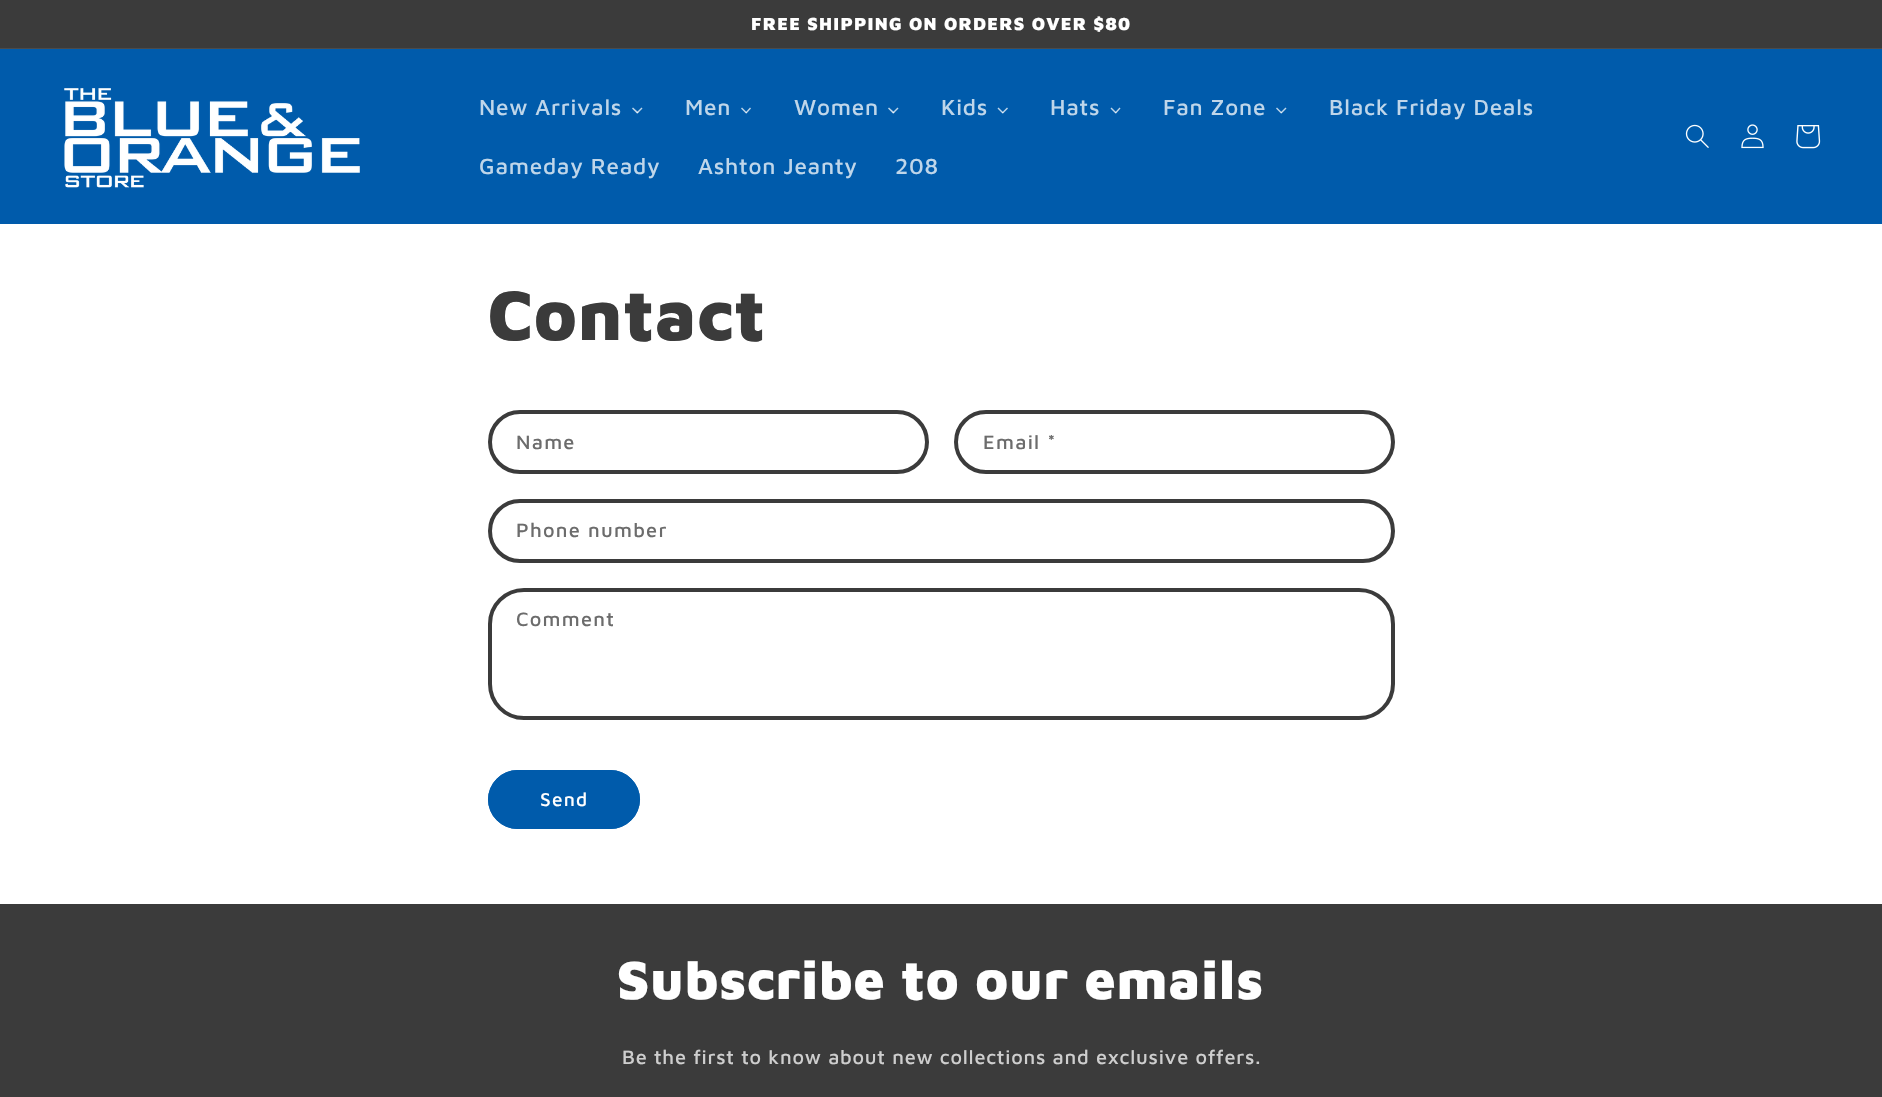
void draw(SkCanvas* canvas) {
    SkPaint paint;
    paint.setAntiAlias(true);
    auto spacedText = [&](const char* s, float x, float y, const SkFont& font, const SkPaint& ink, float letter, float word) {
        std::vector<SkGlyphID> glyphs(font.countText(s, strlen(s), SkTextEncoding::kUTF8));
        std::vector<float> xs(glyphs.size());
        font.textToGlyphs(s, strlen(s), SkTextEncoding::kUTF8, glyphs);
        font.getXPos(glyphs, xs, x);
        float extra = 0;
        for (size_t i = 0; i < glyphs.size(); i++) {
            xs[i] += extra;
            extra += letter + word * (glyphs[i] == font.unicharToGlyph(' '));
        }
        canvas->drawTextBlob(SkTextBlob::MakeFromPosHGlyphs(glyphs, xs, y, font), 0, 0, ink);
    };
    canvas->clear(0xFFFFFFFF);
    paint.setColor(0xFF3B3B3B);
    canvas->drawRect(SkRect::MakeXYWH(0, 0, 1882, 48), paint);
    paint.setColor(0xFF4B4B4B);
    canvas->drawRect(SkRect::MakeXYWH(0, 48, 1882, 1), paint);
    SkFont font1(fontMgr->matchFamilyStyle("Maven Pro", SkFontStyle(900, SkFontStyle::kNormal_Width, SkFontStyle::kUpright_Slant)), 17.9f);
    font1.setSubpixel(true);
    paint.setColor(0xFFFFFFFF);
    spacedText("FREE SHIPPING ON ORDERS OVER $80", 751, 30, font1, paint, 1.25f, 0);
    paint.setColor(0xFF005BAB);
    canvas->drawRect(SkRect::MakeXYWH(0, 49, 1882, 175), paint);
    canvas->drawImageRect(SkImages::DeferredFromEncodedData(SkData::MakeFromFileName("img1.png")), SkRect::MakeXYWH(64, 88, 296, 100), SkSamplingOptions());
    SkFont font2(fontMgr->matchFamilyStyle("Maven Pro", SkFontStyle(500, SkFontStyle::kNormal_Width, SkFontStyle::kUpright_Slant)), 22.5f);
    font2.setSubpixel(true);
    paint.setColor(0xFFBFD6EA);
    spacedText("New Arrivals", 479, 115, font2, paint, 0.75f, 0);
    canvas->drawPath(SkPathBuilder().moveTo(641.5f, 107.5f).lineTo(642.5f, 108.5f).lineTo(637.5f, 113.5f).lineTo(636.5f, 112.5f).close().detach(), paint);
    paint.setColor(0xBFFFFFFF);
    canvas->drawPath(SkPathBuilder().moveTo(633, 107.5f).lineTo(638.5f, 112.5f).lineTo(637, 113.5f).lineTo(632, 108.5f).close().detach(), paint);
    paint.setColor(0xFFBFD6EA);
    spacedText("Men", 685, 115, font2, paint, 0.75f, 0);
    canvas->drawPath(SkPathBuilder().moveTo(750, 107.5f).lineTo(751, 108.5f).lineTo(746.5f, 113.5f).lineTo(745.5f, 112.5f).close().detach(), paint);
    paint.setColor(0xBFFFFFFF);
    canvas->drawPath(SkPathBuilder().moveTo(742, 107.5f).lineTo(747, 112.5f).lineTo(746, 113.5f).lineTo(741, 108.5f).close().detach(), paint);
    paint.setColor(0xFFBFD6EA);
    spacedText("Women", 794, 115, font2, paint, 0.75f, 0);
    canvas->drawPath(SkPathBuilder().moveTo(897.5f, 107.5f).lineTo(898.5f, 108.5f).lineTo(893.5f, 113.5f).lineTo(892.5f, 112.5f).close().detach(), paint);
    paint.setColor(0xBFFFFFFF);
    canvas->drawPath(SkPathBuilder().moveTo(889, 107.5f).lineTo(894.5f, 112.5f).lineTo(893, 113.5f).lineTo(888, 108.5f).close().detach(), paint);
    paint.setColor(0xFFBFD6EA);
    spacedText("Kids", 941, 115, font2, paint, 0.75f, 0);
    canvas->drawPath(SkPathBuilder().moveTo(1007, 107.5f).lineTo(1008, 108.5f).lineTo(1003, 113.5f).lineTo(1002, 112.5f).close().detach(), paint);
    paint.setColor(0xBFFFFFFF);
    canvas->drawPath(SkPathBuilder().moveTo(998.5f, 107.5f).lineTo(1003.5f, 112.5f).lineTo(1002.5f, 113.5f).lineTo(997.5f, 108.5f).close().detach(), paint);
    paint.setColor(0xFFBFD6EA);
    spacedText("Hats", 1050, 115, font2, paint, 0.75f, 0);
    canvas->drawPath(SkPathBuilder().moveTo(1119.5f, 107.5f).lineTo(1120.5f, 108.5f).lineTo(1116, 113.5f).lineTo(1115, 112.5f).close().detach(), paint);
    paint.setColor(0xBFFFFFFF);
    canvas->drawPath(SkPathBuilder().moveTo(1111.5f, 107.5f).lineTo(1116.5f, 112.5f).lineTo(1115.5f, 113.5f).lineTo(1110.5f, 108.5f).close().detach(), paint);
    paint.setColor(0xFFBFD6EA);
    spacedText("Fan Zone", 1163, 115, font2, paint, 0.75f, 0);
    canvas->drawPath(SkPathBuilder().moveTo(1285.5f, 107.5f).lineTo(1286.5f, 108.5f).lineTo(1281.5f, 113.5f).lineTo(1280.5f, 112.5f).close().detach(), paint);
    paint.setColor(0xBFFFFFFF);
    canvas->drawPath(SkPathBuilder().moveTo(1277, 107.5f).lineTo(1282, 112.5f).lineTo(1281, 113.5f).lineTo(1276, 108.5f).close().detach(), paint);
    paint.setColor(0xFFBFD6EA);
    spacedText("Black Friday Deals", 1329, 115, font2, paint, 0.75f, 0);
    spacedText("Gameday Ready", 479, 174, font2, paint, 0.75f, 0);
    spacedText("Ashton Jeanty", 698, 174, font2, paint, 0.75f, 0);
    spacedText("208", 895, 174, font2, paint, 0.75f, 0);
    canvas->drawImageRect(SkImages::DeferredFromEncodedData(SkData::MakeFromFileName("img2.png")), SkRect::MakeXYWH(1685, 124, 24, 24), SkSamplingOptions());
    canvas->drawImageRect(SkImages::DeferredFromEncodedData(SkData::MakeFromFileName("img3.png")), SkRect::MakeXYWH(1741, 124, 23, 25), SkSamplingOptions());
    canvas->drawImageRect(SkImages::DeferredFromEncodedData(SkData::MakeFromFileName("img4.png")), SkRect::MakeXYWH(1796, 125, 25, 24), SkSamplingOptions());
    SkFont font3(fontMgr->matchFamilyStyle("Maven Pro", SkFontStyle(900, SkFontStyle::kNormal_Width, SkFontStyle::kUpright_Slant)), 71.5f);
    font3.setSubpixel(true);
    paint.setColor(0xFF3B3B3B);
    spacedText("Contact", 488, 340, font3, paint, 0.8f, 0);
    paint.setStyle(SkPaint::kStroke_Style);
    paint.setStrokeWidth(4);
    canvas->drawRoundRect(SkRect::MakeXYWH(490, 412, 437, 60), 30, 30, paint);
    SkFont font4(fontMgr->matchFamilyStyle("Maven Pro", SkFontStyle(500, SkFontStyle::kNormal_Width, SkFontStyle::kUpright_Slant)), 20);
    font4.setSubpixel(true);
    paint.setStyle(SkPaint::kFill_Style);
    paint.setColor(0xFF6C6C6C);
    spacedText("Name", 516, 449, font4, paint, 1.25f, 0);
    paint.setStyle(SkPaint::kStroke_Style);
    paint.setColor(0xFF3B3B3B);
    canvas->drawRoundRect(SkRect::MakeXYWH(956, 412, 437, 60), 30, 30, paint);
    paint.setStyle(SkPaint::kFill_Style);
    paint.setColor(0xFF6C6C6C);
    spacedText("Email *", 983, 449, font4, paint, 1.25f, 0);
    paint.setStyle(SkPaint::kStroke_Style);
    paint.setColor(0xFF3B3B3B);
    canvas->drawRoundRect(SkRect::MakeXYWH(490, 501, 903, 60), 30, 30, paint);
    paint.setStyle(SkPaint::kFill_Style);
    paint.setColor(0xFF6C6C6C);
    spacedText("Phone number", 516, 537, font4, paint, 1.25f, 0);
    paint.setStyle(SkPaint::kStroke_Style);
    paint.setColor(0xFF3B3B3B);
    canvas->drawRoundRect(SkRect::MakeXYWH(490, 590, 903, 128), 34, 34, paint);
    paint.setStyle(SkPaint::kFill_Style);
    paint.setColor(0xFF6C6C6C);
    spacedText("Comment", 516, 626, font4, paint, 1.25f, 0);
    paint.setColor(0xFF005BAB);
    canvas->drawRoundRect(SkRect::MakeXYWH(488, 770, 152, 59), 29.5f, 29.5f, paint);
    paint.setStyle(SkPaint::kStroke_Style);
    paint.setStrokeWidth(1);
    canvas->drawRoundRect(SkRect::MakeXYWH(488.5f, 770.5f, 151, 58), 29, 29, paint);
    SkFont font5(fontMgr->matchFamilyStyle("Maven Pro", SkFontStyle(500, SkFontStyle::kNormal_Width, SkFontStyle::kUpright_Slant)), 19);
    font5.setSubpixel(true);
    paint.setStyle(SkPaint::kFill_Style);
    paint.setColor(0xFFFFFFFF);
    spacedText("Send", 540, 806, font5, paint, 1.25f, 0);
    paint.setColor(0xFF3B3B3B);
    canvas->drawRect(SkRect::MakeXYWH(0, 904, 1882, 193), paint);
    SkFont font6(fontMgr->matchFamilyStyle("Maven Pro", SkFontStyle(900, SkFontStyle::kNormal_Width, SkFontStyle::kUpright_Slant)), 55);
    font6.setSubpixel(true);
    paint.setColor(0xFFFFFFFF);
    spacedText("Subscribe to our emails", 617, 999, font6, paint, 0.8f, 0);
    paint.setColor(0xFFCECECE);
    spacedText("Be the first to know about new collections and exclusive offers.", 622, 1064, font4, paint, 0.75f, 0);
}
